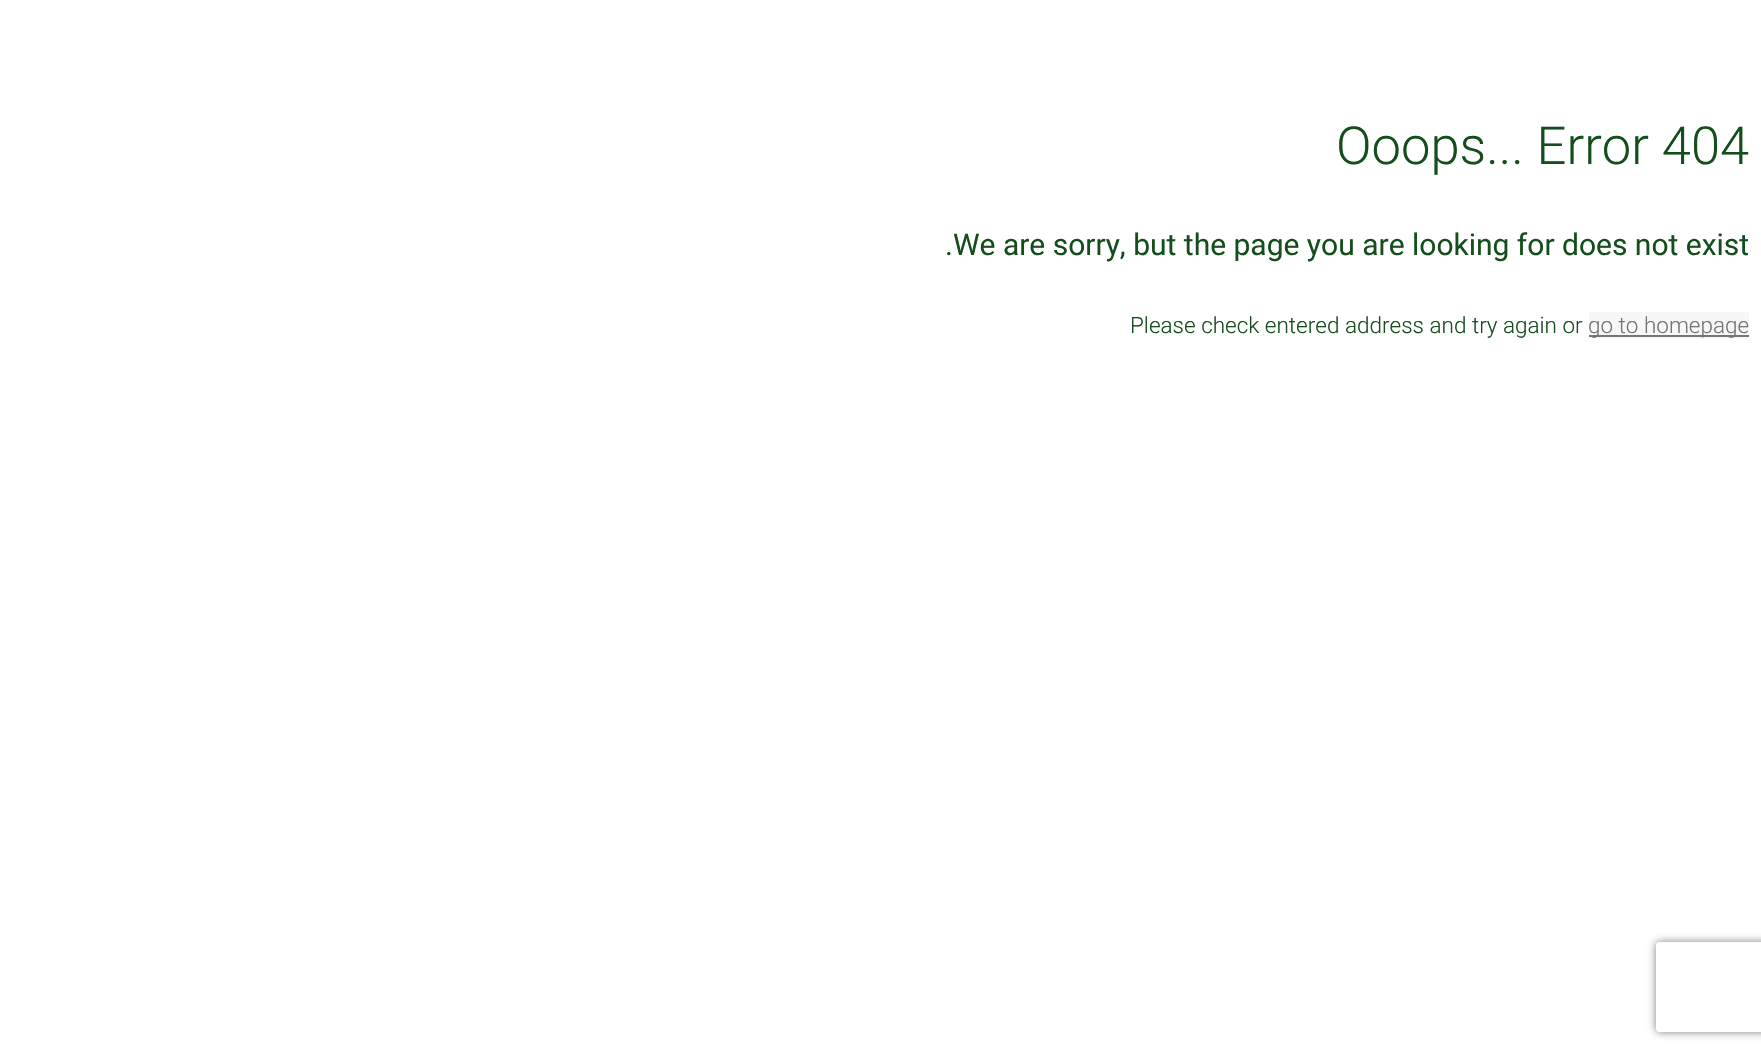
void draw(SkCanvas* canvas) {
    SkPaint paint;
    paint.setAntiAlias(true);
    canvas->clear(0xFFFFFFFF);
    SkFont font1(fontMgr->matchFamilyStyle("Roboto", SkFontStyle(300, SkFontStyle::kNormal_Width, SkFontStyle::kUpright_Slant)), 52.5f);
    font1.setSubpixel(true);
    paint.setColor(0xFF144E1C);
    canvas->drawString("Ooops... Error 404", 1336, 164, font1, paint);
    SkFont font2(fontMgr->matchFamilyStyle("Roboto", SkFontStyle::Normal()), 30);
    font2.setSubpixel(true);
    canvas->drawString(".We are sorry, but the page you are looking for does not exist", 945, 255, font2, paint);
    SkFont font3(fontMgr->matchFamilyStyle("Roboto", SkFontStyle(300, SkFontStyle::kNormal_Width, SkFontStyle::kUpright_Slant)), 22.5f);
    font3.setSubpixel(true);
    canvas->drawString("Please check entered address and try again or", 1130, 333, font3, paint);
    paint.setColor(0xFFF7F7F7);
    canvas->drawRect(SkRect::MakeXYWH(1589, 312, 160, 27), paint);
    paint.setColor(0xFF747474);
    canvas->drawRect(SkRect::MakeXYWH(1589, 335, 160, 2), paint);
    canvas->drawString("go to homepage", 1588, 333, font3, paint);
    canvas->save();
    canvas->clipPath(SkPathBuilder(SkPathFillType::kEvenOdd).moveTo(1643, 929).lineTo(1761, 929).lineTo(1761, 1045).lineTo(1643, 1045).close().moveTo(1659, 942).lineTo(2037, 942).cubicTo(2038.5f, 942, 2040, 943.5f, 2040, 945).lineTo(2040, 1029).cubicTo(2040, 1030.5f, 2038.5f, 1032, 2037, 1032).lineTo(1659, 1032).cubicTo(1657.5f, 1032, 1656, 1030.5f, 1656, 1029).lineTo(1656, 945).cubicTo(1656, 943.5f, 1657.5f, 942, 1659, 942).close().detach(), true);
    paint.setColor(0xFF808080);
    paint.setMaskFilter(SkMaskFilter::MakeBlur(kNormal_SkBlurStyle, 4));
    canvas->drawRoundRect(SkRect::MakeXYWH(1656, 942, 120, 90), 3, 3, paint);
    paint.setMaskFilter(nullptr);
    canvas->restore();
}
